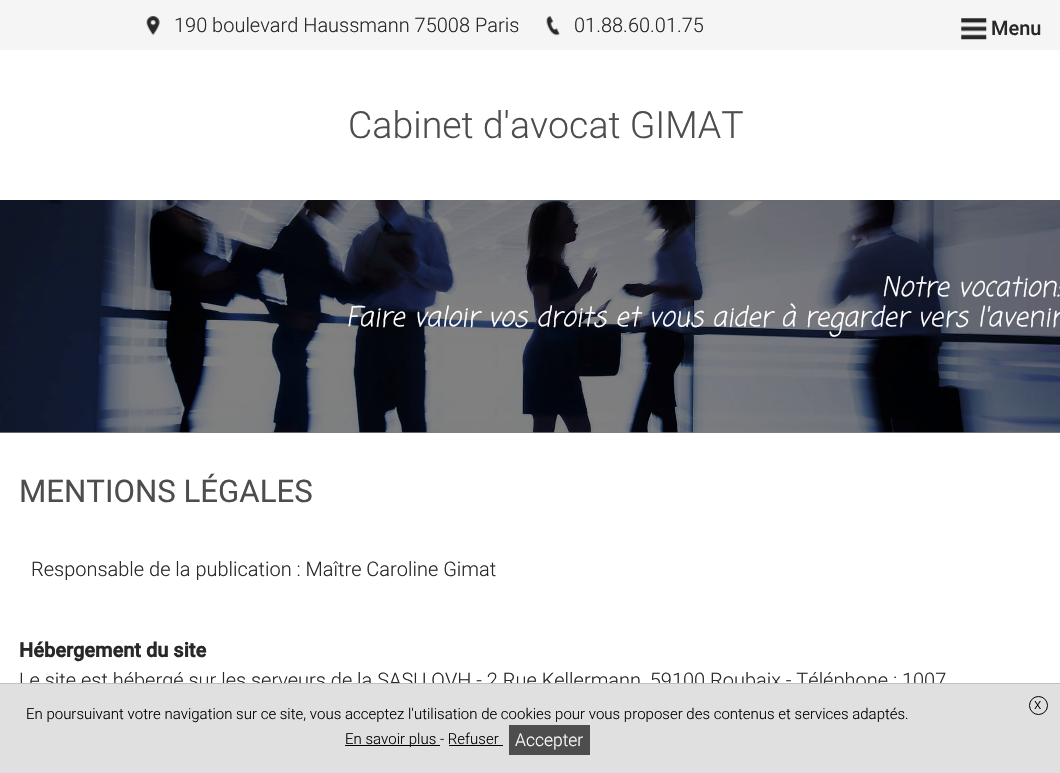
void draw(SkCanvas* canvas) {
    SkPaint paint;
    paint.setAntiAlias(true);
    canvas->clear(0xFFFFFFFF);
    paint.setColor(0xFF808080);
    canvas->drawRect(SkRect::MakeXYWH(0, 432, 1060, 1), paint);
    paint.setColor(0xFFF5F5F5);
    canvas->drawRect(SkRect::MakeXYWH(0, 0, 1060, 50), paint);
    canvas->drawImageRect(SkImages::DeferredFromEncodedData(SkData::MakeFromFileName("img1.png")), SkRect::MakeXYWH(146, 16, 14, 20), SkSamplingOptions());
    SkFont font1(fontMgr->matchFamilyStyle("Roboto", SkFontStyle(300, SkFontStyle::kNormal_Width, SkFontStyle::kUpright_Slant)), 20);
    font1.setSubpixel(true);
    paint.setColor(0xFF282828);
    canvas->drawString("190 boulevard Haussmann 75008 Paris", 174, 32, font1, paint);
    canvas->drawImageRect(SkImages::DeferredFromEncodedData(SkData::MakeFromFileName("img2.png")), SkRect::MakeXYWH(546, 16, 14, 20), SkSamplingOptions());
    canvas->drawString("01.88.60.01.75", 574, 32, font1, paint);
    canvas->drawImageRect(SkImages::DeferredFromEncodedData(SkData::MakeFromFileName("img3.png")), SkRect::MakeXYWH(961, 18, 26, 22), SkSamplingOptions());
    SkFont font2(fontMgr->matchFamilyStyle("Roboto", SkFontStyle(500, SkFontStyle::kNormal_Width, SkFontStyle::kUpright_Slant)), 20);
    font2.setSubpixel(true);
    canvas->drawString("Menu", 991, 35, font2, paint);
    SkFont font3(fontMgr->matchFamilyStyle("Roboto", SkFontStyle(300, SkFontStyle::kNormal_Width, SkFontStyle::kUpright_Slant)), 37.5f);
    font3.setSubpixel(true);
    paint.setColor(0xFF4D4D4D);
    canvas->drawString("Cabinet d'avocat GIMAT", 348, 138, font3, paint);
    canvas->drawImageRect(SkImages::DeferredFromEncodedData(SkData::MakeFromFileName("img4.png")), SkRect::MakeXYWH(0, 200, 1060, 233), SkSamplingOptions());
    SkFont font4(fontMgr->matchFamilyStyle("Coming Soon", SkFontStyle::Italic()), 26.7f);
    font4.setSubpixel(true);
    paint.setColor(0xFFFFFFFF);
    canvas->drawString("Notre vocation:", 881, 296, font4, paint);
    canvas->drawString("Faire valoir vos droits et vous aider à regarder vers l'avenir", 346, 326, font4, paint);
    SkFont font5(fontMgr->matchFamilyStyle("Roboto", SkFontStyle::Normal()), 31.25f);
    font5.setSubpixel(true);
    paint.setColor(0xFF4D4D4D);
    canvas->drawString("MENTIONS LÉGALES", 19, 502, font5, paint);
    paint.setColor(0xFF282828);
    canvas->drawString("Responsable de la publication : Maître Caroline Gimat", 31, 576, font1, paint);
    SkFont font6(fontMgr->matchFamilyStyle("Roboto", SkFontStyle::Bold()), 20);
    font6.setSubpixel(true);
    canvas->drawString("Hébergement du site", 19, 657, font6, paint);
    canvas->drawString("Le site est hébergé sur les serveurs de la SASU OVH - 2 Rue Kellermann, 59100 Roubaix - Téléphone : 1007", 19, 687, font1, paint);
    paint.setColor(0xFFE0E0E0);
    canvas->drawRect(SkRect::MakeXYWH(0, 684, 1060, 89), paint);
    paint.setColor(0xFFC0C0C0);
    canvas->drawRect(SkRect::MakeXYWH(0, 683, 1060, 1), paint);
    paint.setStyle(SkPaint::kStroke_Style);
    paint.setStrokeWidth(1);
    paint.setColor(0xFF000000);
    canvas->drawCircle(1038.5f, 705.5f, 9, paint);
    SkFont font7(fontMgr->matchFamilyStyle("Roboto", SkFontStyle(300, SkFontStyle::kNormal_Width, SkFontStyle::kUpright_Slant)), 15);
    font7.setSubpixel(true);
    paint.setStyle(SkPaint::kFill_Style);
    canvas->drawString("x", 1034, 709, font7, paint);
    canvas->drawString("En poursuivant votre navigation sur ce site, vous acceptez l'utilisation de cookies pour vous proposer des contenus et services adaptés.", 26, 719, font7, paint);
    canvas->drawRect(SkRect::MakeXYWH(345, 745, 95, 1), paint);
    canvas->drawString("En savoir plus - Refuser", 345, 744, font7, paint);
    paint.setColor(0xFF4D4D4D);
    canvas->drawRect(SkRect::MakeXYWH(509, 725, 81, 30), paint);
    SkFont font8(fontMgr->matchFamilyStyle("Roboto", SkFontStyle(300, SkFontStyle::kNormal_Width, SkFontStyle::kUpright_Slant)), 17.5f);
    font8.setSubpixel(true);
    paint.setColor(0xFFFFFFFF);
    canvas->drawString("Accepter", 515, 746, font8, paint);
    paint.setColor(0xFF000000);
    canvas->drawRect(SkRect::MakeXYWH(449, 745, 54, 1), paint);
}
